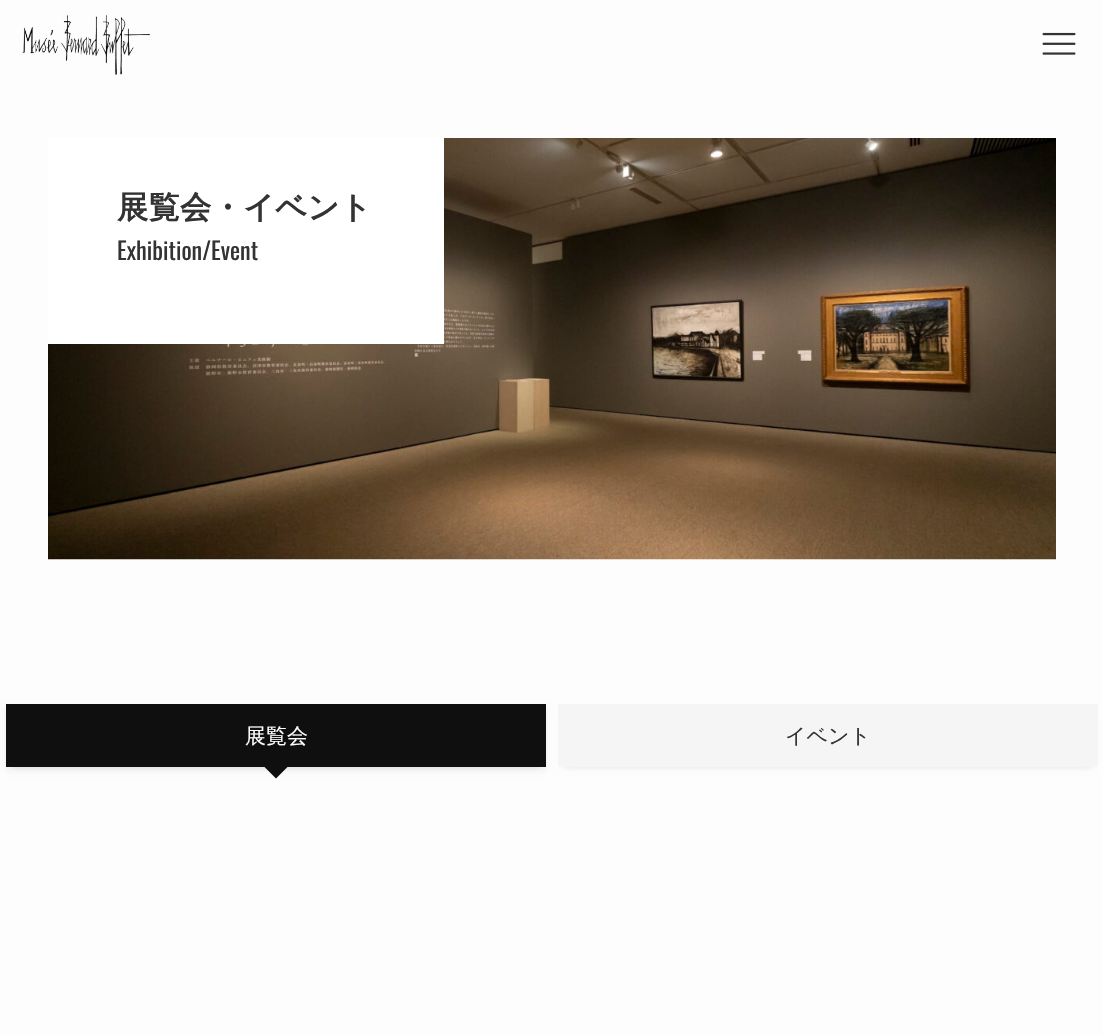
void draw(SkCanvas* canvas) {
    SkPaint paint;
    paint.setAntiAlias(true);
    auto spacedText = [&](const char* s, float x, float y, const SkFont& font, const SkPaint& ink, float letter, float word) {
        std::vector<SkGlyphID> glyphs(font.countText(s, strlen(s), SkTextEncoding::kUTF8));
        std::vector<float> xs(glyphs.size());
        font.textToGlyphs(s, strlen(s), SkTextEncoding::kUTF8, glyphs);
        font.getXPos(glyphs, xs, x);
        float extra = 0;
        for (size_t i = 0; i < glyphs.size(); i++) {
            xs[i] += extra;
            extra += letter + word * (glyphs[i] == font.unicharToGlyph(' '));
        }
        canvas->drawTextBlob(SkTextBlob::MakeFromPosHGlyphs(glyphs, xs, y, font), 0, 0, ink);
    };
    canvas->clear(0xFFFDFDFD);
    canvas->drawImageRect(SkImages::DeferredFromEncodedData(SkData::MakeFromFileName("img1.png")), SkRect::MakeXYWH(22, 15, 128, 60), SkSamplingOptions());
    canvas->drawImageRect(SkImages::DeferredFromEncodedData(SkData::MakeFromFileName("img2.png")), SkRect::MakeXYWH(1042, 32, 34, 23), SkSamplingOptions());
    canvas->drawImageRect(SkImages::DeferredFromEncodedData(SkData::MakeFromFileName("img3.png")), SkRect::MakeXYWH(48, 138, 1008, 422), SkSamplingOptions());
    paint.setColor(0xFFFFFFFF);
    canvas->drawRect(SkRect::MakeXYWH(48, 138, 396, 206), paint);
    SkFont font1(fontMgr->matchFamilyStyle("WenQuanYi Zen Hei", SkFontStyle::Bold()), 31.25f);
    font1.setSubpixel(true);
    paint.setColor(0xFF333333);
    spacedText("展覧会・イベント", 117, 218, font1, paint, 0.25f, 0);
    SkFont font2(fontMgr->matchFamilyStyle("Oswald", SkFontStyle::Normal()), 24);
    font2.setSubpixel(true);
    canvas->drawString("Exhibition/Event", 117, 260, font2, paint);
    paint.setColor(0x1A000000);
    paint.setMaskFilter(SkMaskFilter::MakeBlur(kNormal_SkBlurStyle, 3));
    canvas->drawRect(SkRect::MakeXYWH(12, 716, 528, 51), paint);
    paint.setMaskFilter(nullptr);
    paint.setColor(0x0D000000);
    paint.setMaskFilter(SkMaskFilter::MakeBlur(kNormal_SkBlurStyle, 3));
    canvas->drawRect(SkRect::MakeXYWH(6, 707, 540, 63), paint);
    paint.setMaskFilter(nullptr);
    paint.setColor(0xFF0F0F0F);
    canvas->drawRect(SkRect::MakeXYWH(6, 704, 540, 63), paint);
    SkFont font3(fontMgr->matchFamilyStyle("WenQuanYi Zen Hei", SkFontStyle(500, SkFontStyle::kNormal_Width, SkFontStyle::kUpright_Slant)), 21);
    font3.setSubpixel(true);
    paint.setColor(0xFFFFFFFF);
    canvas->drawString("展覧会", 245, 743, font3, paint);
    paint.setColor(0xFF0F0F0F);
    canvas->drawPath(SkPathBuilder().moveTo(264, 766.5f).lineTo(288, 766.5f).lineTo(276, 778.5f).close().detach(), paint);
    canvas->save();
    canvas->clipPath(SkPathBuilder(SkPathFillType::kEvenOdd).moveTo(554, 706).lineTo(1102, 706).lineTo(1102, 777).lineTo(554, 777).close().moveTo(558, 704).lineTo(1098, 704).lineTo(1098, 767).lineTo(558, 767).close().detach(), true);
    paint.setColor(0x1A000000);
    paint.setMaskFilter(SkMaskFilter::MakeBlur(kNormal_SkBlurStyle, 3));
    canvas->drawRect(SkRect::MakeXYWH(564, 716, 528, 51), paint);
    paint.setMaskFilter(nullptr);
    canvas->restore();
    paint.setColor(0x26C7C7C7);
    canvas->drawRect(SkRect::MakeXYWH(558, 704, 540, 63), paint);
    paint.setColor(0xFF333333);
    canvas->drawString("イベント", 785, 743, font3, paint);
}
